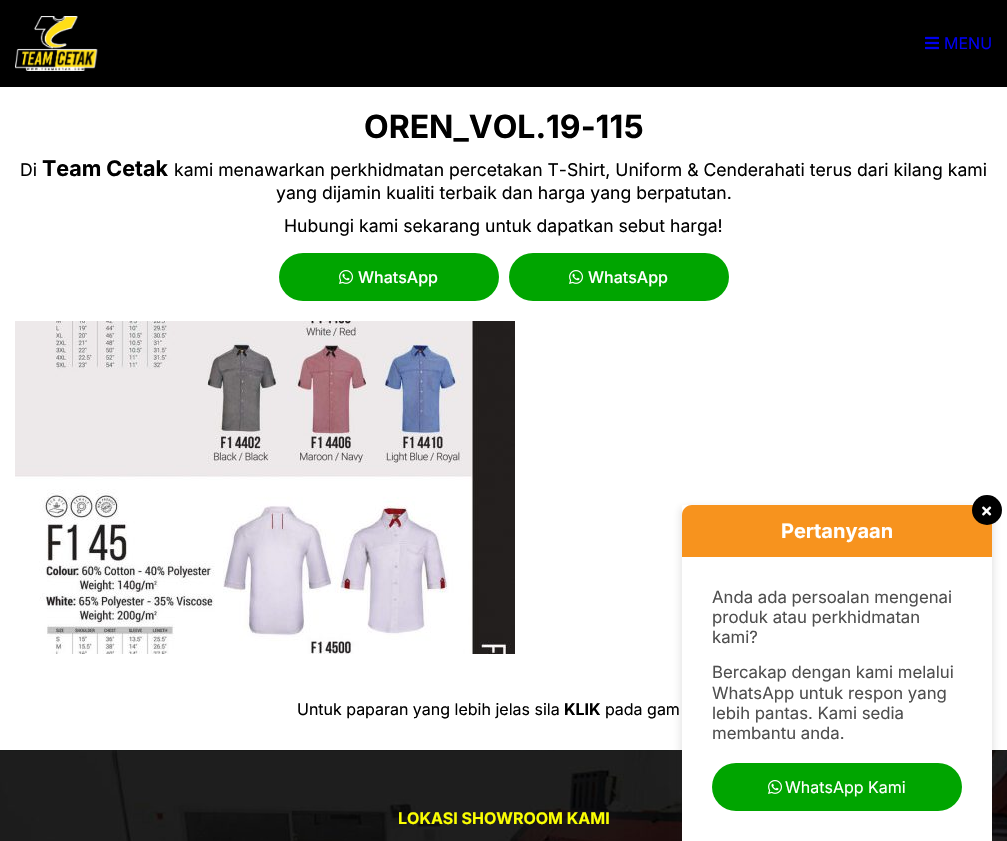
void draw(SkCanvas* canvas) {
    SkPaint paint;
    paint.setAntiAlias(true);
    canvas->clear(0xFFFFFFFF);
    paint.setColor(0xFF000000);
    canvas->drawRect(SkRect::MakeXYWH(0, 0, 1007, 87), paint);
    canvas->drawImageRect(SkImages::DeferredFromEncodedData(SkData::MakeFromFileName("img1.png")), SkRect::MakeXYWH(15, 16, 83, 55), SkSamplingOptions());
    canvas->drawImageRect(SkImages::DeferredFromEncodedData(SkData::MakeFromFileName("img2.png")), SkRect::MakeXYWH(925, 36, 14, 14), SkSamplingOptions());
    SkFont font1(fontMgr->matchFamilyStyle("Inter", SkFontStyle::Normal()), 16);
    font1.setSubpixel(true);
    paint.setColor(0xFF0000EE);
    canvas->drawString("MENU", 944, 49, font1, paint);
    SkFont font2(fontMgr->matchFamilyStyle("Inter", SkFontStyle::Bold()), 32);
    font2.setSubpixel(true);
    paint.setColor(0xFF000000);
    canvas->drawString("OREN_VOL.19-115", 364, 138, font2, paint);
    SkFont font3(fontMgr->matchFamilyStyle("Inter", SkFontStyle::Normal()), 17.6f);
    font3.setSubpixel(true);
    canvas->drawString("Di", 20, 176, font3, paint);
    SkFont font4(fontMgr->matchFamilyStyle("Inter", SkFontStyle::Bold()), 21.5f);
    font4.setSubpixel(true);
    canvas->drawString("Team Cetak", 42, 176, font4, paint);
    canvas->drawString("kami menawarkan perkhidmatan percetakan T-Shirt, Uniform & Cenderahati terus dari kilang kami", 174, 176, font3, paint);
    canvas->drawString("yang dijamin kualiti terbaik dan harga yang berpatutan.", 276, 199, font3, paint);
    canvas->drawString("Hubungi kami sekarang untuk dapatkan sebut harga!", 284, 232, font3, paint);
    paint.setColor(0xFF00A500);
    canvas->drawRoundRect(SkRect::MakeXYWH(279, 253, 220, 48), 24, 24, paint);
    canvas->drawImageRect(SkImages::DeferredFromEncodedData(SkData::MakeFromFileName("img3.png")), SkRect::MakeXYWH(339, 270, 14, 14), SkSamplingOptions());
    SkFont font5(fontMgr->matchFamilyStyle("Inter", SkFontStyle(500, SkFontStyle::kNormal_Width, SkFontStyle::kUpright_Slant)), 16);
    font5.setSubpixel(true);
    paint.setColor(0xFFFFFFFF);
    canvas->drawString("WhatsApp", 358, 283, font5, paint);
    paint.setColor(0xFF00A500);
    canvas->drawRoundRect(SkRect::MakeXYWH(509, 253, 220, 48), 24, 24, paint);
    canvas->drawImageRect(SkImages::DeferredFromEncodedData(SkData::MakeFromFileName("img3.png")), SkRect::MakeXYWH(569, 270, 14, 14), SkSamplingOptions());
    paint.setColor(0xFFFFFFFF);
    canvas->drawString("WhatsApp", 588, 283, font5, paint);
    canvas->drawImageRect(SkImages::DeferredFromEncodedData(SkData::MakeFromFileName("img4.png")), SkRect::MakeXYWH(15, 321, 500, 333), SkSamplingOptions());
    paint.setColor(0xFF000000);
    canvas->drawString("Untuk paparan yang lebih jelas sila", 297, 715, font1, paint);
    SkFont font6(fontMgr->matchFamilyStyle("Inter", SkFontStyle::Bold()), 16);
    font6.setSubpixel(true);
    canvas->drawString("KLIK", 564, 715, font6, paint);
    canvas->drawString("pada gam", 605, 715, font1, paint);
    canvas->drawImageRect(SkImages::DeferredFromEncodedData(SkData::MakeFromFileName("img6.png")), SkRect::MakeXYWH(0, 750, 1007, 91), SkSamplingOptions());
    canvas->save();
    canvas->clipPath(SkPathBuilder(SkPathFillType::kEvenOdd).moveTo(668, 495).lineTo(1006, 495).lineTo(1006, 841).lineTo(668, 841).close().moveTo(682, 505).lineTo(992, 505).lineTo(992, 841).lineTo(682, 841).close().detach(), true);
    paint.setColor(0x262B2B2B);
    paint.setMaskFilter(SkMaskFilter::MakeBlur(kNormal_SkBlurStyle, 4));
    canvas->drawRect(SkRect::MakeXYWH(681, 508, 312, 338), paint);
    paint.setMaskFilter(nullptr);
    canvas->restore();
    paint.setColor(0xFFF7931E);
    canvas->drawPath(SkPathBuilder().moveTo(692, 505).lineTo(982, 505).cubicTo(987.5f, 505, 992, 509.5f, 992, 515).lineTo(992, 557).lineTo(682, 557).lineTo(682, 515).cubicTo(682, 509.5f, 686.5f, 505, 692, 505).close().detach(), paint);
    paint.setColor(0xFF000000);
    canvas->drawCircle(987, 510, 15, paint);
    canvas->drawImageRect(SkImages::DeferredFromEncodedData(SkData::MakeFromFileName("img5.png")), SkRect::MakeXYWH(982, 506, 10, 10), SkSamplingOptions());
    SkFont font7(fontMgr->matchFamilyStyle("Inter", SkFontStyle::Bold()), 20);
    font7.setSubpixel(true);
    paint.setColor(0xFFFFFFFF);
    canvas->drawString("Pertanyaan", 781, 538, font7, paint);
    canvas->drawRect(SkRect::MakeXYWH(682, 750, 310, 91), paint);
    SkFont font8(fontMgr->matchFamilyStyle("Inter", SkFontStyle::Normal()), 16.75f);
    font8.setSubpixel(true);
    paint.setColor(0xFF4F4F4F);
    canvas->drawString("Anda ada persoalan mengenai", 712, 603, font8, paint);
    canvas->drawString("produk atau perkhidmatan", 712, 623, font8, paint);
    canvas->drawString("kami?", 712, 643, font8, paint);
    canvas->drawString("Bercakap dengan kami melalui", 712, 678, font8, paint);
    canvas->drawString("WhatsApp untuk respon yang", 712, 699, font8, paint);
    canvas->drawString("lebih pantas. Kami sedia", 712, 719, font8, paint);
    canvas->drawString("membantu anda.", 712, 739, font8, paint);
    paint.setColor(0xFF00A500);
    canvas->drawRoundRect(SkRect::MakeXYWH(712, 763, 250, 48), 24, 24, paint);
    canvas->drawImageRect(SkImages::DeferredFromEncodedData(SkData::MakeFromFileName("img3.png")), SkRect::MakeXYWH(768, 780, 14, 14), SkSamplingOptions());
    paint.setColor(0xFFFFFFFF);
    canvas->drawString("WhatsApp Kami", 785, 793, font1, paint);
    paint.setColor(0xFFFBFF02);
    canvas->drawString("LOKASI SHOWROOM KAMI", 398, 824, font6, paint);
}
